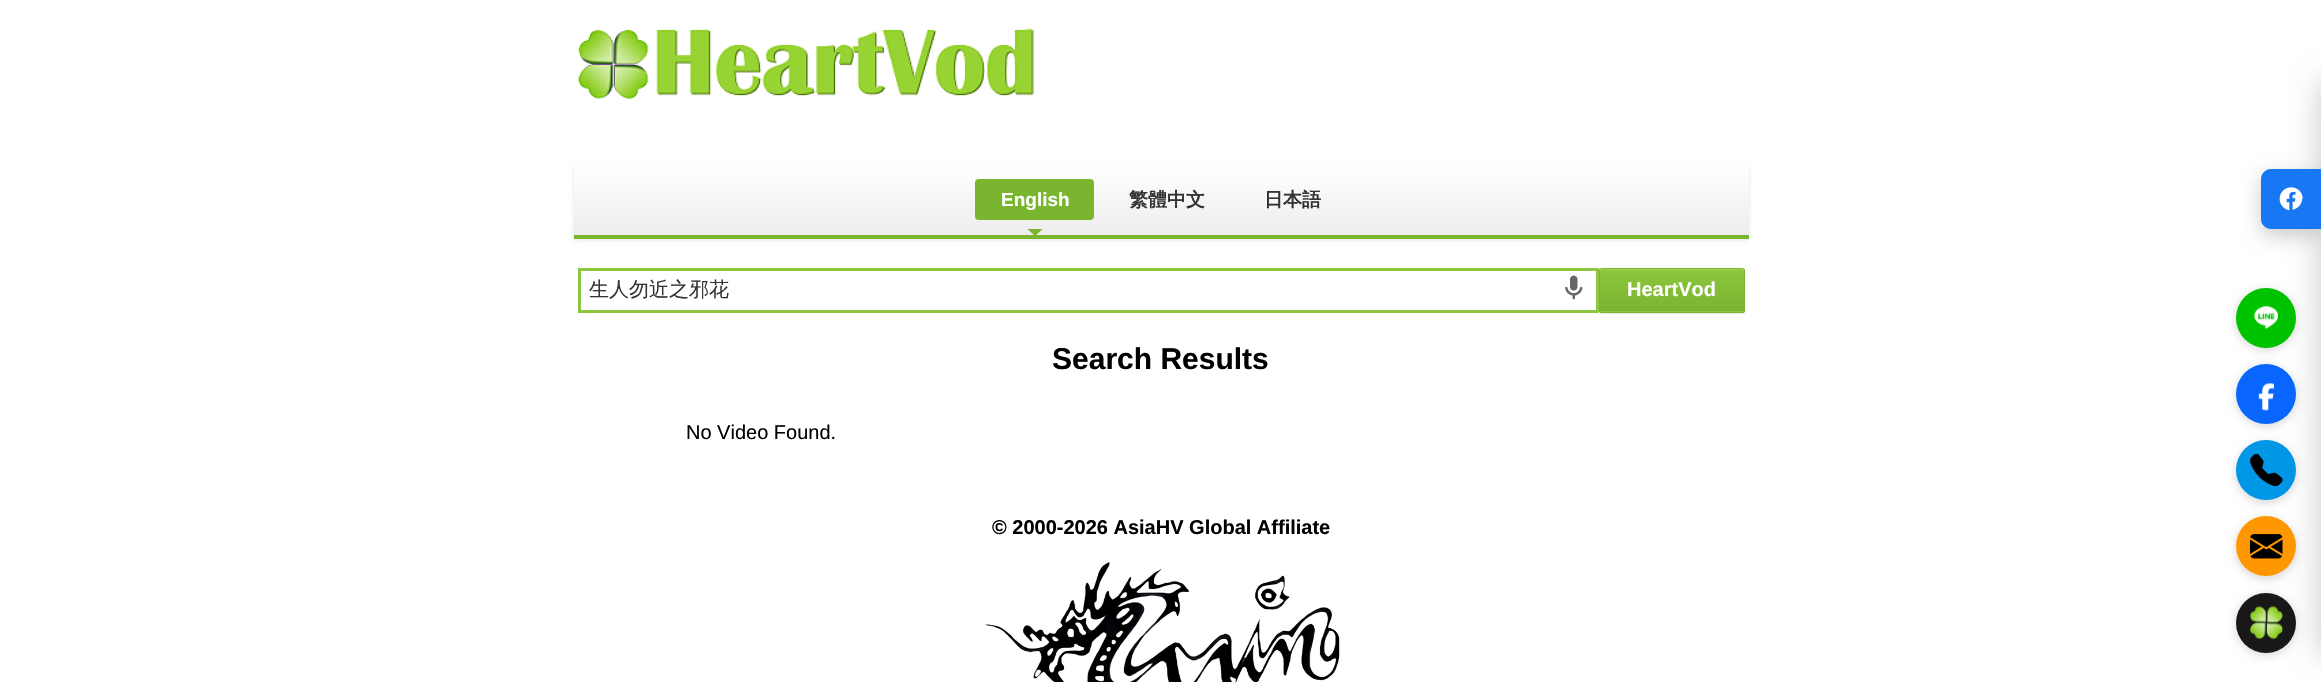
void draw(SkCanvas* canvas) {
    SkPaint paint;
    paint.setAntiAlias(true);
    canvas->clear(0xFFFFFFFF);
    canvas->drawImageRect(SkImages::DeferredFromEncodedData(SkData::MakeFromFileName("img1.png")), SkRect::MakeXYWH(578, 28, 456, 71), SkSamplingOptions());
    paint.setColor(0x29000000);
    paint.setMaskFilter(SkMaskFilter::MakeBlur(kNormal_SkBlurStyle, 5));
    canvas->drawRoundRect(SkRect::MakeXYWH(2236, 290, 60, 60), 30, 30, paint);
    paint.setMaskFilter(nullptr);
    paint.setColor(0xFF00C300);
    canvas->drawCircle(2266, 318, 30, paint);
    canvas->drawImageRect(SkImages::DeferredFromEncodedData(SkData::MakeFromFileName("img4.png")), SkRect::MakeXYWH(2254, 306, 24, 24), SkSamplingOptions());
    paint.setColor(0x29000000);
    paint.setMaskFilter(SkMaskFilter::MakeBlur(kNormal_SkBlurStyle, 5));
    canvas->drawRoundRect(SkRect::MakeXYWH(2236, 366, 60, 60), 30, 30, paint);
    paint.setMaskFilter(nullptr);
    paint.setColor(0xFF0866FF);
    canvas->drawCircle(2266, 394, 30, paint);
    canvas->drawImageRect(SkImages::DeferredFromEncodedData(SkData::MakeFromFileName("img5.png")), SkRect::MakeXYWH(2258, 383, 16, 28), SkSamplingOptions());
    paint.setColor(0x29000000);
    paint.setMaskFilter(SkMaskFilter::MakeBlur(kNormal_SkBlurStyle, 5));
    canvas->drawRoundRect(SkRect::MakeXYWH(2236, 443, 60, 60), 30, 30, paint);
    paint.setMaskFilter(nullptr);
    paint.setColor(0xFF0097E6);
    canvas->drawCircle(2266, 470, 30, paint);
    canvas->drawImageRect(SkImages::DeferredFromEncodedData(SkData::MakeFromFileName("img6.png")), SkRect::MakeXYWH(2250, 454, 33, 32), SkSamplingOptions());
    paint.setColor(0x29000000);
    paint.setMaskFilter(SkMaskFilter::MakeBlur(kNormal_SkBlurStyle, 5));
    canvas->drawRoundRect(SkRect::MakeXYWH(2236, 519, 60, 60), 30, 30, paint);
    paint.setMaskFilter(nullptr);
    paint.setColor(0xFFFF9800);
    canvas->drawCircle(2266, 546, 30, paint);
    canvas->drawImageRect(SkImages::DeferredFromEncodedData(SkData::MakeFromFileName("img7.png")), SkRect::MakeXYWH(2250, 534, 33, 25), SkSamplingOptions());
    paint.setColor(0x29000000);
    paint.setMaskFilter(SkMaskFilter::MakeBlur(kNormal_SkBlurStyle, 5));
    canvas->drawRoundRect(SkRect::MakeXYWH(2236, 595, 60, 60), 30, 30, paint);
    paint.setMaskFilter(nullptr);
    paint.setColor(0xFF181818);
    canvas->drawCircle(2266, 623, 30, paint);
    canvas->drawImageRect(SkImages::DeferredFromEncodedData(SkData::MakeFromFileName("img8.png")), SkRect::MakeXYWH(2250, 606, 33, 34), SkSamplingOptions());
    paint.setColor(0x38000000);
    paint.setMaskFilter(SkMaskFilter::MakeBlur(kNormal_SkBlurStyle, 15.5f));
    canvas->drawRoundRect(SkRect::MakeXYWH(2321, 81, 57, 575), 10, 10, paint);
    paint.setMaskFilter(nullptr);
    paint.setColor(0x33000000);
    paint.setMaskFilter(SkMaskFilter::MakeBlur(kNormal_SkBlurStyle, 10));
    canvas->drawRoundRect(SkRect::MakeXYWH(2261, 176, 60, 60), 10, 10, paint);
    paint.setMaskFilter(nullptr);
    paint.setColor(0xFF1877F2);
    canvas->drawPath(SkPathBuilder().moveTo(2271, 169).lineTo(2321, 169).lineTo(2321, 229).lineTo(2271, 229).cubicTo(2265.5f, 229, 2261, 224.5f, 2261, 219).lineTo(2261, 179).cubicTo(2261, 173.5f, 2265.5f, 169, 2271, 169).close().detach(), paint);
    canvas->drawImageRect(SkImages::DeferredFromEncodedData(SkData::MakeFromFileName("img2.png")), SkRect::MakeXYWH(2279, 187, 24, 24), SkSamplingOptions());
    paint.setColor(0x1A000000);
    paint.setMaskFilter(SkMaskFilter::MakeBlur(kNormal_SkBlurStyle, 2));
    canvas->drawRect(SkRect::MakeXYWH(574, 168, 1175, 72), paint);
    paint.setMaskFilter(nullptr);
    {
        const SkColor colors[] = {0xFFFFFFFF, 0xFFF6F6F6, 0xFFEDEDED};
        const float stops[] = {0, 0.47f, 1};
        const SkPoint ends[] = {{1161, 166}, {1161, 235}};
        paint.setShader(SkGradientShader::MakeLinear(ends, colors, stops, 3, SkTileMode::kClamp));
        paint.setAlpha(255);
    }
    canvas->drawRect(SkRect::MakeXYWH(574, 166, 1175, 69), paint);
    paint.setShader(nullptr);
    paint.setColor(0xFF7AB52F);
    canvas->drawRect(SkRect::MakeXYWH(574, 235, 1175, 4), paint);
    canvas->drawRoundRect(SkRect::MakeXYWH(975, 179, 119, 41), 4, 4, paint);
    SkFont font1(fontMgr->matchFamilyStyle("Liberation Sans", SkFontStyle::Bold()), 19);
    font1.setSubpixel(true);
    paint.setColor(0xFFFFFFFF);
    canvas->drawString("English", 1001, 206, font1, paint);
    paint.setColor(0xFF7AB52F);
    canvas->drawPath(SkPathBuilder().moveTo(1027.5f, 229).lineTo(1042.5f, 229).lineTo(1035, 236).close().detach(), paint);
    SkFont font2(fontMgr->matchFamilyStyle("WenQuanYi Zen Hei", SkFontStyle::Bold()), 19);
    font2.setSubpixel(true);
    paint.setColor(0xFF333333);
    canvas->drawString("繁體中文", 1129, 206, font2, paint);
    canvas->drawString("日本語", 1264, 206, font2, paint);
    paint.setStyle(SkPaint::kStroke_Style);
    paint.setStrokeWidth(3);
    paint.setColor(0xFF8DC63F);
    canvas->drawRect(SkRect::MakeXYWH(579.5f, 269.5f, 1018, 42), paint);
    SkFont font3(fontMgr->matchFamilyStyle("WenQuanYi Zen Hei", SkFontStyle(500, SkFontStyle::kNormal_Width, SkFontStyle::kUpright_Slant)), 20);
    font3.setSubpixel(true);
    paint.setStyle(SkPaint::kFill_Style);
    paint.setColor(0xFF333333);
    canvas->drawString("生人勿近之邪花", 589, 296, font3, paint);
    canvas->drawImageRect(SkImages::DeferredFromEncodedData(SkData::MakeFromFileName("img3.png")), SkRect::MakeXYWH(1565, 275, 18, 25), SkSamplingOptions());
    paint.setColor(0x1A000000);
    paint.setMaskFilter(SkMaskFilter::MakeBlur(kNormal_SkBlurStyle, 0.5f));
    canvas->drawRoundRect(SkRect::MakeXYWH(1599, 269, 146, 45), 2.5f, 2.5f, paint);
    paint.setMaskFilter(nullptr);
    {
        const SkColor colors[] = {0xFF8DC63F, 0xFF7AB52F};
        const float stops[] = {0, 1};
        const SkPoint ends[] = {{1672, 269}, {1672, 311}};
        paint.setShader(SkGradientShader::MakeLinear(ends, colors, stops, 2, SkTileMode::kClamp));
        paint.setAlpha(255);
    }
    canvas->drawRect(SkRect::MakeXYWH(1599, 269, 146, 42), paint);
    canvas->save();
    canvas->clipPath(SkPathBuilder().moveTo(1601.5f, 268).lineTo(1742.5f, 268).cubicTo(1744, 268, 1745, 269, 1745, 270.5f).lineTo(1745, 310.5f).cubicTo(1745, 312, 1744, 313, 1742.5f, 313).lineTo(1601.5f, 313).cubicTo(1600, 313, 1599, 312, 1599, 310.5f).lineTo(1599, 270.5f).cubicTo(1599, 269, 1600, 268, 1601.5f, 268).close().detach(), true);
    {
        const SkColor colors[] = {0xFF8DC63F, 0xFF7AB52F};
        const float stops[] = {0, 1};
        const SkPoint ends[] = {{1672, 311}, {1672, 354}};
        paint.setShader(SkGradientShader::MakeLinear(ends, colors, stops, 2, SkTileMode::kClamp));
        paint.setAlpha(255);
    }
    canvas->drawRect(SkRect::MakeXYWH(1599, 311, 146, 2), paint);
    canvas->restore();
    paint.setShader(nullptr);
    paint.setColor(0xFF9ED54F);
    canvas->drawPath(SkPathBuilder().moveTo(1601, 270).lineTo(1742, 270).lineTo(1744, 271).cubicTo(1744, 270, 1744, 269, 1743, 269).lineTo(1600, 269).lineTo(1600, 271).close().detach(), paint);
    paint.setStyle(SkPaint::kStroke_Style);
    paint.setStrokeWidth(1);
    paint.setColor(0xFF7AB52F);
    canvas->drawRoundRect(SkRect::MakeXYWH(1599.5f, 268.5f, 145, 44), 2, 2, paint);
    SkFont font4(fontMgr->matchFamilyStyle("Liberation Sans", SkFontStyle::Bold()), 20);
    font4.setSubpixel(true);
    paint.setStyle(SkPaint::kFill_Style);
    paint.setColor(0xFFFFFFFF);
    canvas->drawString("HeartVod", 1627, 296, font4, paint);
    SkFont font5(fontMgr->matchFamilyStyle("Liberation Sans", SkFontStyle::Bold()), 30);
    font5.setSubpixel(true);
    paint.setColor(0xFF000000);
    canvas->drawString("Search Results", 1052, 369, font5, paint);
    SkFont font6(fontMgr->matchFamilyStyle("Liberation Sans", SkFontStyle::Normal()), 20);
    font6.setSubpixel(true);
    canvas->drawString("No Video Found.", 686, 439, font6, paint);
    canvas->drawString("© 2000-2026 AsiaHV Global Affiliate", 992, 534, font4, paint);
    canvas->drawImageRect(SkImages::DeferredFromEncodedData(SkData::MakeFromFileName("img9.png")), SkRect::MakeXYWH(985, 562, 355, 120), SkSamplingOptions());
}
